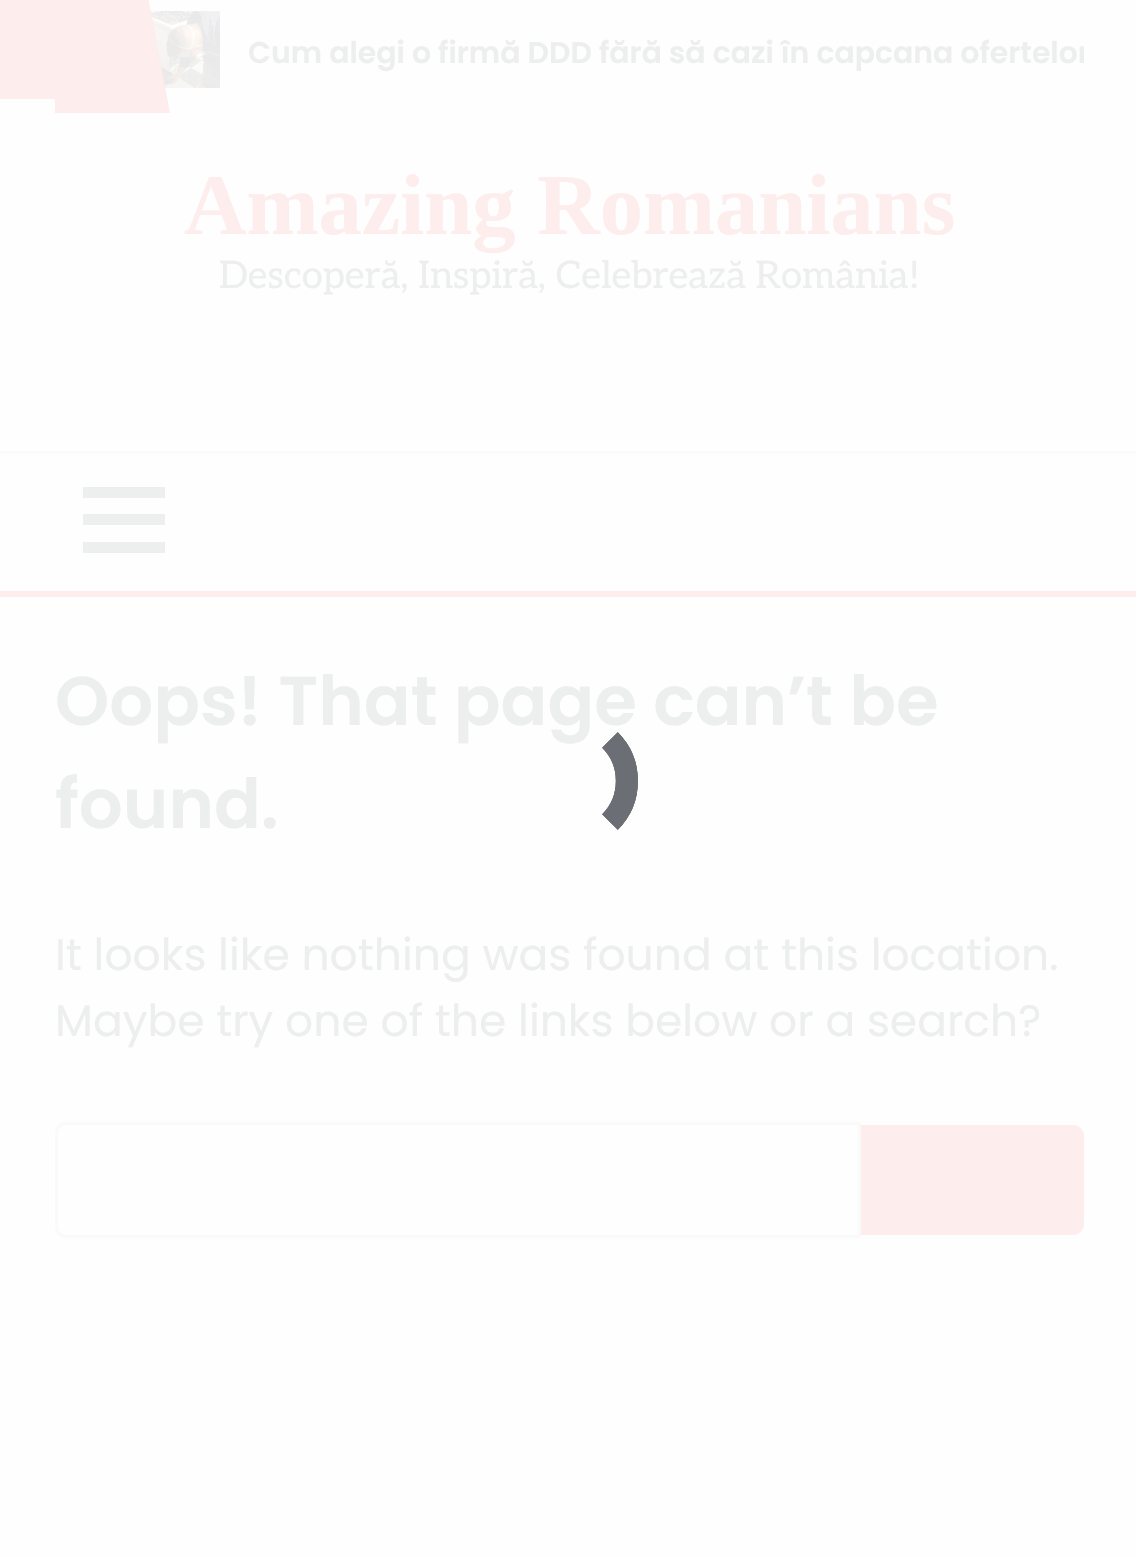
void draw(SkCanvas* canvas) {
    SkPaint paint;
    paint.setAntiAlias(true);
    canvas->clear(0xFFFEFEFE);
    paint.setColor(0xFFFDEDED);
    canvas->drawRect(SkRect::MakeXYWH(0, 0, 55, 99), paint);
    canvas->drawImageRect(SkImages::DeferredFromEncodedData(SkData::MakeFromFileName("img1.png")), SkRect::MakeXYWH(150, 11, 70, 77), SkSamplingOptions());
    canvas->drawPath(SkPathBuilder().moveTo(55, -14).lineTo(55, 113).lineTo(170, 113).lineTo(146, -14).close().detach(), paint);
    canvas->save();
    canvas->clipRect(SkRect::MakeXYWH(55, 0, 1029, 99));
    SkFont font1(fontMgr->matchFamilyStyle("Poppins", SkFontStyle(600, SkFontStyle::kNormal_Width, SkFontStyle::kUpright_Slant)), 29.9f);
    font1.setSubpixel(true);
    paint.setColor(0xFFEDEEEE);
    canvas->drawString("Cum alegi o firmă DDD fără să cazi în capcana ofertelor", 248, 63, font1, paint);
    canvas->restore();
    SkFont font2(fontMgr->matchFamilyStyle("Liberation Serif", SkFontStyle::Bold()), 86.5f);
    font2.setSubpixel(true);
    paint.setColor(0xFFFDEDED);
    canvas->drawString("Amazing Romanians", 184, 234, font2, paint);
    SkFont font3(fontMgr->matchFamilyStyle("Aleo", SkFontStyle::Normal()), 38.1f);
    font3.setSubpixel(true);
    paint.setColor(0xFFEDEEEE);
    canvas->drawString("Descoperă, Inspiră, Celebrează România!", 219, 288, font3, paint);
    paint.setColor(0xFFFBFBFB);
    canvas->drawRect(SkRect::MakeXYWH(0, 451, 1136, 3), paint);
    paint.setColor(0xFFFDEDED);
    canvas->drawRect(SkRect::MakeXYWH(0, 591, 1136, 6), paint);
    paint.setColor(0xFFEDEEEE);
    canvas->drawRect(SkRect::MakeXYWH(83, 487, 82, 11), paint);
    canvas->drawRect(SkRect::MakeXYWH(83, 514, 82, 11), paint);
    canvas->drawRect(SkRect::MakeXYWH(83, 542, 82, 11), paint);
    SkFont font4(fontMgr->matchFamilyStyle("Poppins", SkFontStyle(600, SkFontStyle::kNormal_Width, SkFontStyle::kUpright_Slant)), 69);
    font4.setSubpixel(true);
    canvas->drawString("Oops! That page can’t be", 55, 725, font4, paint);
    canvas->drawString("found.", 55, 828, font4, paint);
    SkFont font5(fontMgr->matchFamilyStyle("Poppins", SkFontStyle::Normal()), 44);
    font5.setSubpixel(true);
    canvas->drawString("It looks like nothing was found at this location.", 55, 970, font5, paint);
    canvas->drawString("Maybe try one of the links below or a search?", 55, 1036, font5, paint);
    paint.setStyle(SkPaint::kStroke_Style);
    paint.setStrokeWidth(3);
    paint.setColor(0xFFFAFAFA);
    canvas->drawPath(SkPathBuilder().moveTo(66, 1123.5f).lineTo(859.5f, 1123.5f).lineTo(859.5f, 1236.5f).lineTo(66, 1236.5f).cubicTo(61, 1236.5f, 56.5f, 1232, 56.5f, 1227).lineTo(56.5f, 1133).cubicTo(56.5f, 1128, 61, 1123.5f, 66, 1123.5f).close().detach(), paint);
    paint.setStyle(SkPaint::kFill_Style);
    paint.setColor(0xFFFDEDED);
    canvas->drawPath(SkPathBuilder().moveTo(862.5f, 1126.5f).lineTo(1073, 1126.5f).cubicTo(1078, 1126.5f, 1082.5f, 1131, 1082.5f, 1136).lineTo(1082.5f, 1224).cubicTo(1082.5f, 1229, 1078, 1233.5f, 1073, 1233.5f).lineTo(862.5f, 1233.5f).close().detach(), paint);
    paint.setStyle(SkPaint::kStroke_Style);
    canvas->drawPath(SkPathBuilder().moveTo(862.5f, 1126.5f).lineTo(1073, 1126.5f).cubicTo(1078, 1126.5f, 1082.5f, 1131, 1082.5f, 1136).lineTo(1082.5f, 1224).cubicTo(1082.5f, 1229, 1078, 1233.5f, 1073, 1233.5f).lineTo(862.5f, 1233.5f).close().detach(), paint);
    paint.setStrokeWidth(22);
    paint.setColor(0xFF6B6F75);
    canvas->drawPath(SkPathBuilder().moveTo(610, 740).cubicTo(632.5f, 762.5f, 632.5f, 799.5f, 610, 822).detach(), paint);
    canvas->drawPath(SkPathBuilder().moveTo(610, 740).cubicTo(632.5f, 762.5f, 632.5f, 799.5f, 610, 822).detach(), paint);
    canvas->drawPath(SkPathBuilder().moveTo(610, 740).cubicTo(632.5f, 762.5f, 632.5f, 799.5f, 610, 822).detach(), paint);
}
